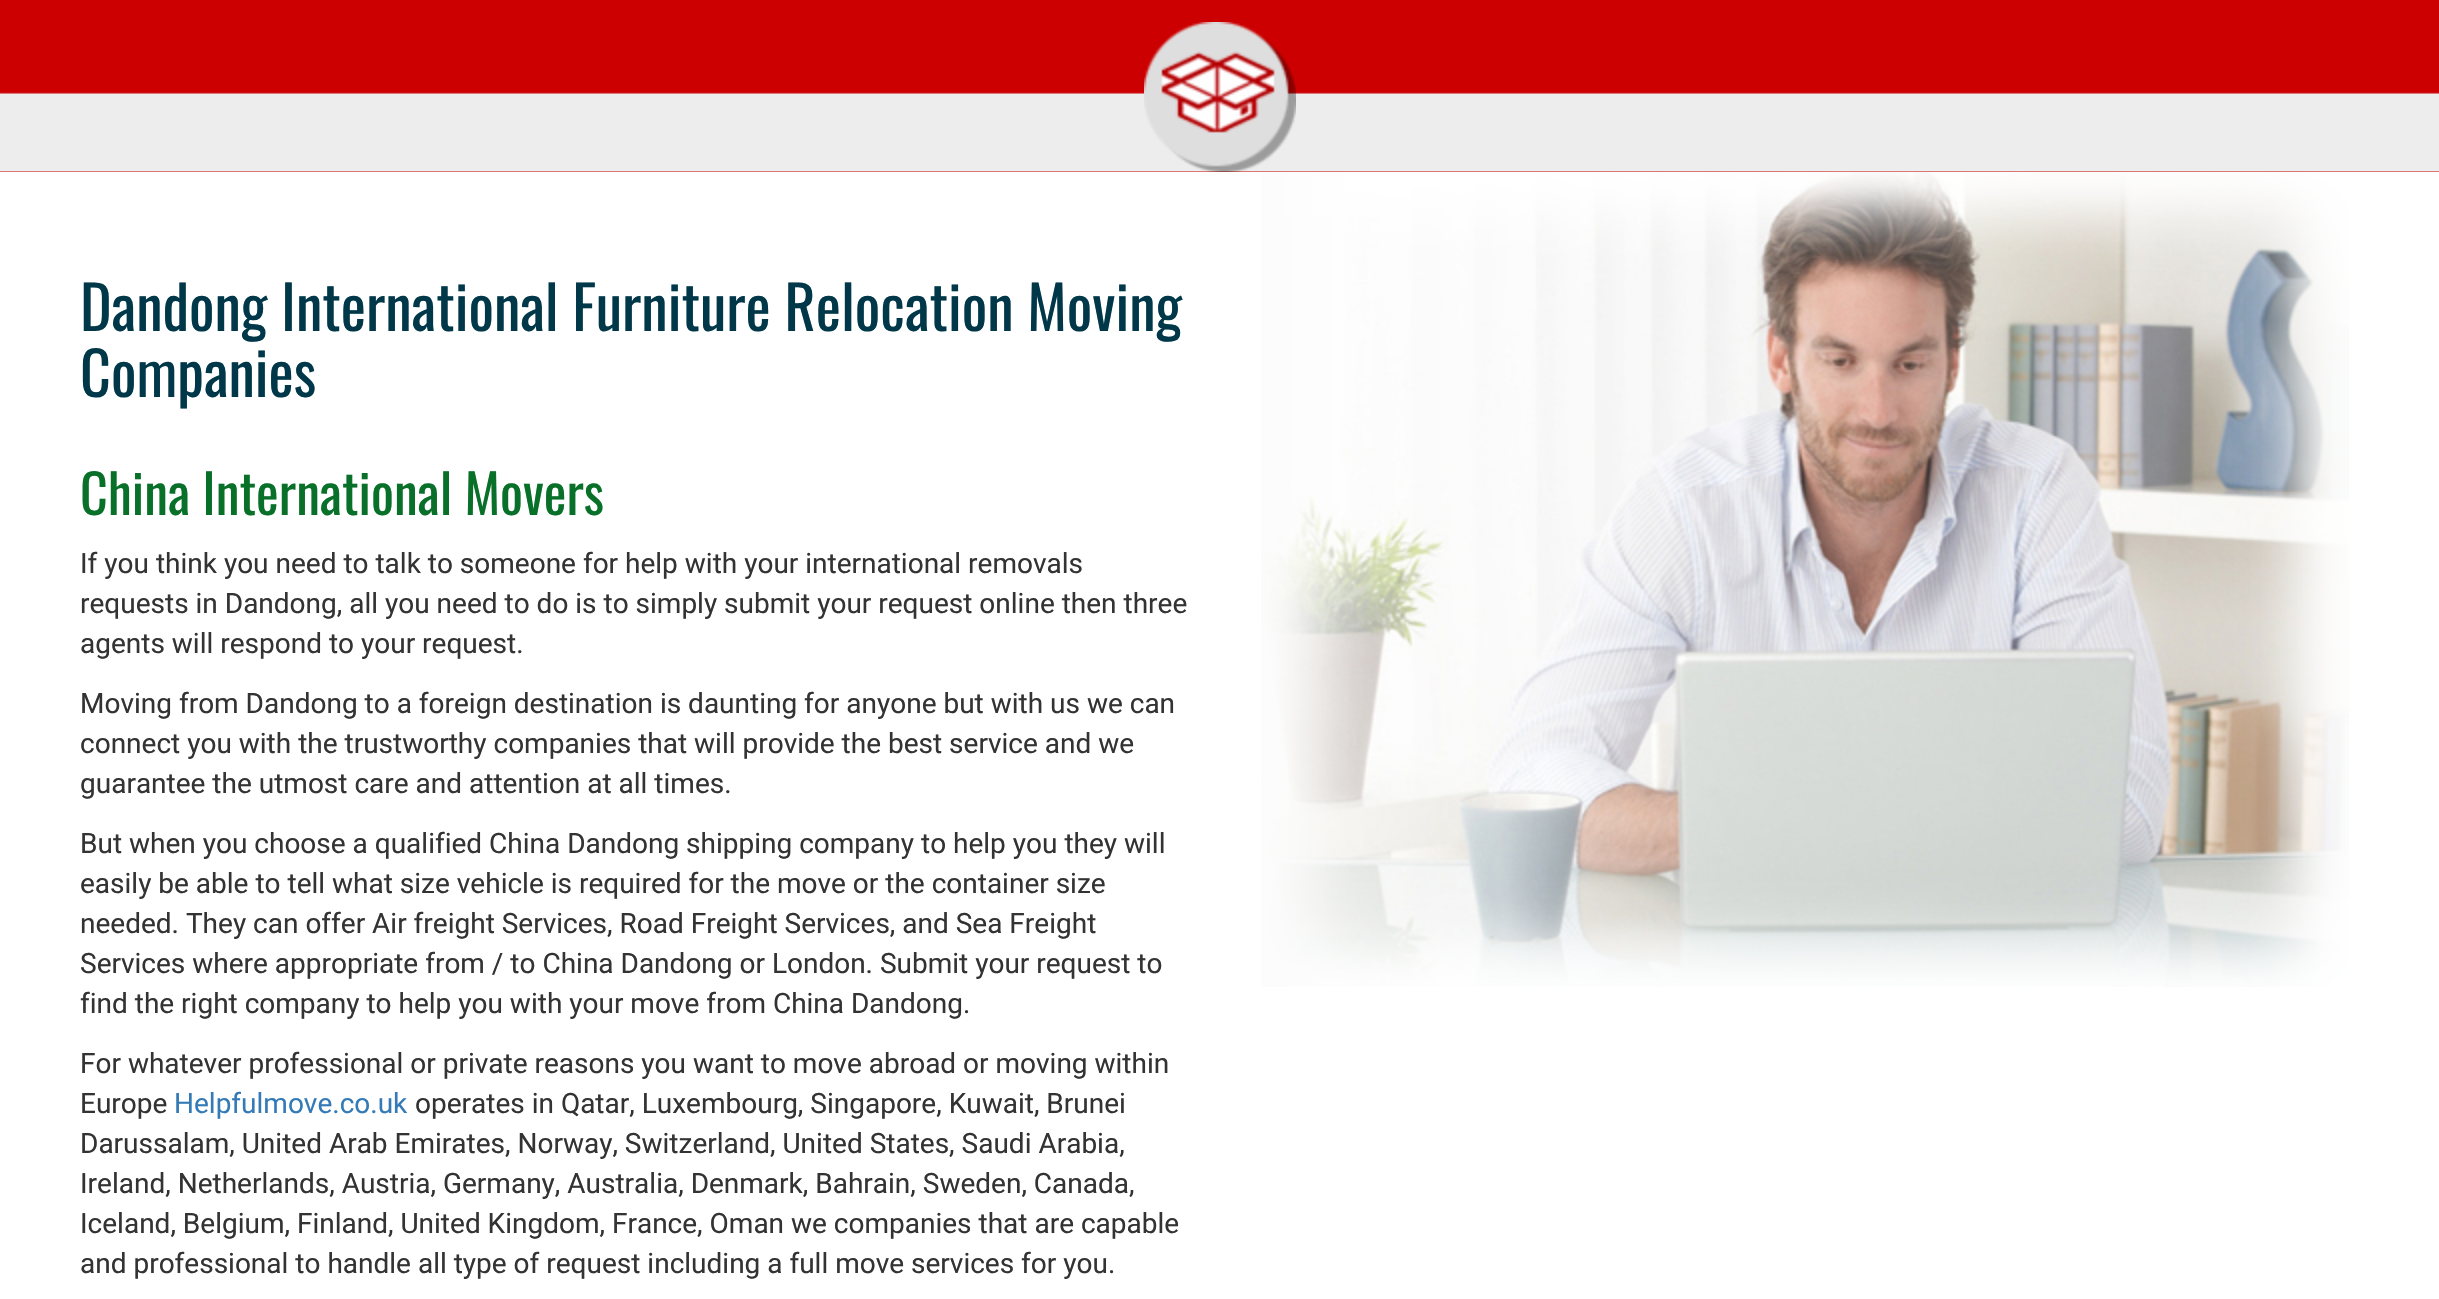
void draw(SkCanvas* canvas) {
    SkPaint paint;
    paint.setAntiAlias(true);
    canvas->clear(0xFFFFFFFF);
    paint.setColor(0xFFCC0000);
    canvas->drawRect(SkRect::MakeXYWH(0, 0, 2439, 92), paint);
    canvas->drawImageRect(SkImages::DeferredFromEncodedData(SkData::MakeFromFileName("img1.png")), SkRect::MakeXYWH(0, 92, 2439, 80), SkSamplingOptions());
    canvas->drawImageRect(SkImages::DeferredFromEncodedData(SkData::MakeFromFileName("img2.png")), SkRect::MakeXYWH(1144, 22, 152, 150), SkSamplingOptions());
    SkFont font1(fontMgr->matchFamilyStyle("Oswald", SkFontStyle::Normal()), 60);
    font1.setSubpixel(true);
    paint.setColor(0xFF003749);
    canvas->drawString("Dandong International Furniture Relocation Moving", 80, 331, font1, paint);
    canvas->drawString("Companies", 80, 397, font1, paint);
    SkFont font2(fontMgr->matchFamilyStyle("Oswald", SkFontStyle::Normal()), 54);
    font2.setSubpixel(true);
    paint.setColor(0xFF087028);
    canvas->drawString("China International Movers", 80, 515, font2, paint);
    SkFont font3(fontMgr->matchFamilyStyle("Roboto", SkFontStyle::Normal()), 28);
    font3.setSubpixel(true);
    paint.setColor(0xFF333333);
    canvas->drawString("If you think you need to talk to someone for help with your international removals", 80, 573, font3, paint);
    canvas->drawString("requests in Dandong, all you need to do is to simply submit your request online then three", 80, 613, font3, paint);
    canvas->drawString("agents will respond to your request.", 80, 653, font3, paint);
    canvas->drawString("Moving from Dandong to a foreign destination is daunting for anyone but with us we can", 80, 713, font3, paint);
    canvas->drawString("connect you with the trustworthy companies that will provide the best service and we", 80, 753, font3, paint);
    canvas->drawString("guarantee the utmost care and attention at all times.", 80, 793, font3, paint);
    canvas->drawString("But when you choose a qualified China Dandong shipping company to help you they will", 80, 853, font3, paint);
    canvas->drawString("easily be able to tell what size vehicle is required for the move or the container size", 80, 893, font3, paint);
    canvas->drawString("needed. They can offer Air freight Services, Road Freight Services, and Sea Freight", 80, 933, font3, paint);
    canvas->drawString("Services where appropriate from / to China Dandong or London. Submit your request to", 80, 973, font3, paint);
    canvas->drawString("find the right company to help you with your move from China Dandong.", 80, 1013, font3, paint);
    canvas->drawString("For whatever professional or private reasons you want to move abroad or moving within", 80, 1073, font3, paint);
    canvas->drawString("Europe", 80, 1113, font3, paint);
    paint.setColor(0xFF337AB7);
    canvas->drawString("Helpfulmove.co.uk", 174, 1113, font3, paint);
    paint.setColor(0xFF333333);
    canvas->drawString("operates in Qatar, Luxembourg, Singapore, Kuwait, Brunei", 415, 1113, font3, paint);
    canvas->drawString("Darussalam, United Arab Emirates, Norway, Switzerland, United States, Saudi Arabia,", 80, 1153, font3, paint);
    canvas->drawString("Ireland, Netherlands, Austria, Germany, Australia, Denmark, Bahrain, Sweden, Canada,", 80, 1193, font3, paint);
    canvas->drawString("Iceland, Belgium, Finland, United Kingdom, France, Oman we companies that are capable", 80, 1233, font3, paint);
    canvas->drawString("and professional to handle all type of request including a full move services for you.", 80, 1273, font3, paint);
    canvas->drawImageRect(SkImages::DeferredFromEncodedData(SkData::MakeFromFileName("img3.png")), SkRect::MakeXYWH(1261, 172, 1088, 815), SkSamplingOptions());
}
